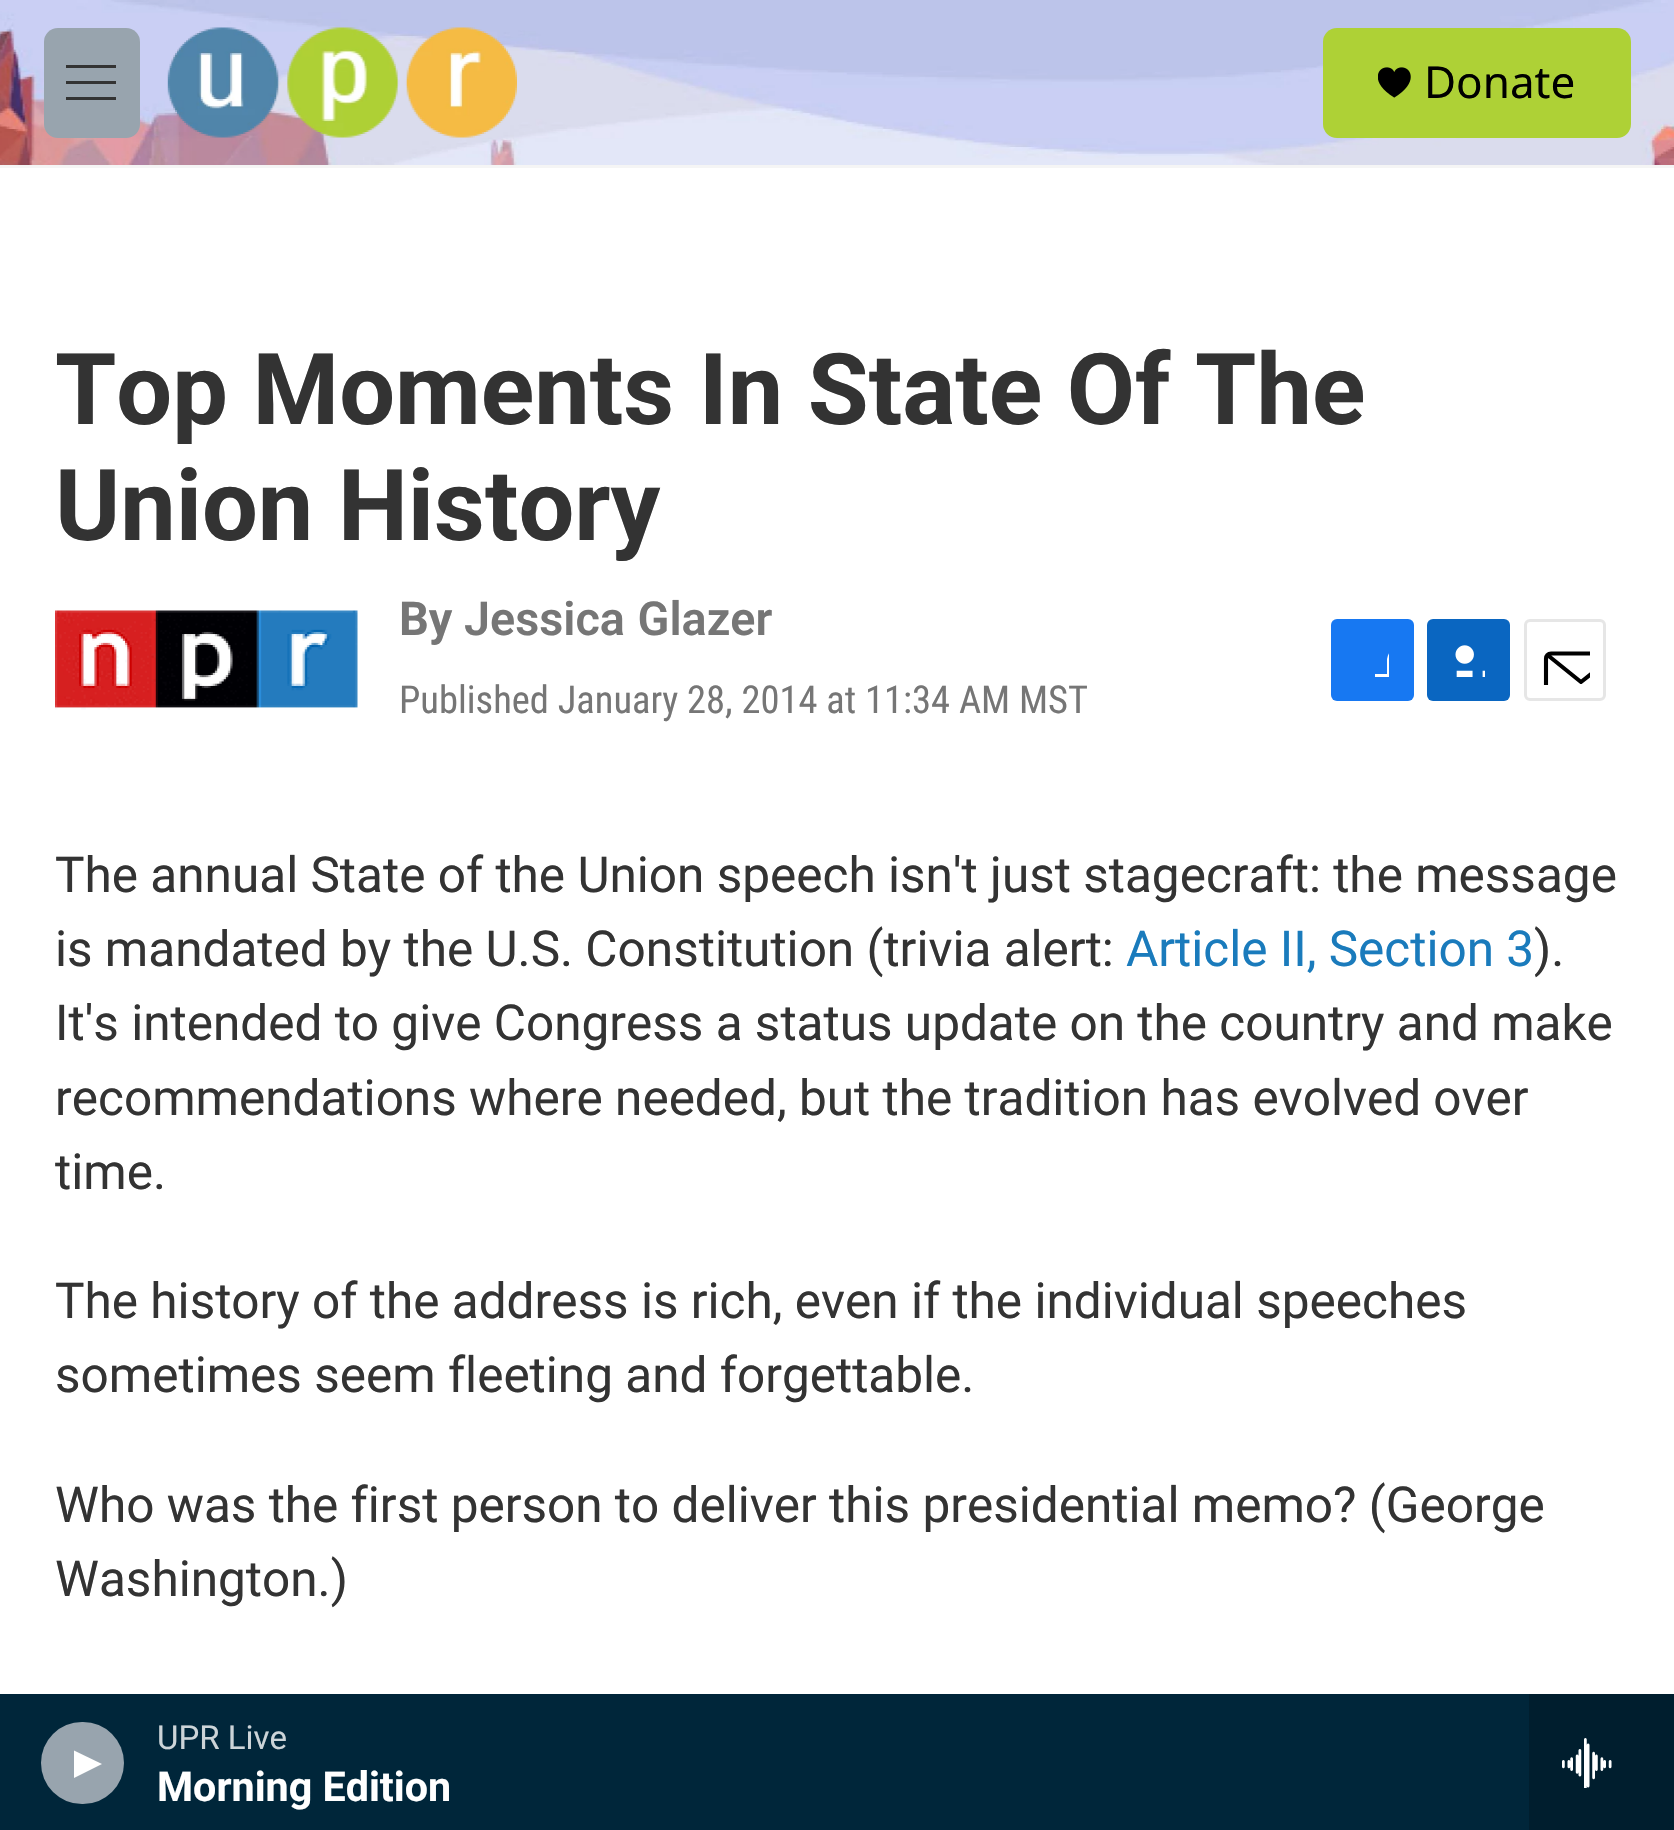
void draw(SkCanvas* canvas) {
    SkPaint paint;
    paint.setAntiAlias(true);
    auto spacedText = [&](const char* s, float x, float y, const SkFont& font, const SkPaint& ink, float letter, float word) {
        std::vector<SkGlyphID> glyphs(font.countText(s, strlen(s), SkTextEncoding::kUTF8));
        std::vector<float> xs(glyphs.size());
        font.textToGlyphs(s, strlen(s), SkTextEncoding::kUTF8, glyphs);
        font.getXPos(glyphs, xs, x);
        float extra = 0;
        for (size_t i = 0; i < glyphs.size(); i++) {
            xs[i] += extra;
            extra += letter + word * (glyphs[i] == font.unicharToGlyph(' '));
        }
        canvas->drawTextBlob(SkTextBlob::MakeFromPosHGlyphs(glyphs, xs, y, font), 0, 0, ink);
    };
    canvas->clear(0xFFFFFFFF);
    paint.setColor(0xFFF5F5F5);
    canvas->drawRect(SkRect::MakeXYWH(0, 165, 1674, 3), paint);
    canvas->drawImageRect(SkImages::DeferredFromEncodedData(SkData::MakeFromFileName("img1.png")), SkRect::MakeXYWH(0, 0, 1674, 165), SkSamplingOptions());
    paint.setColor(0xFF98A4AE);
    canvas->drawRoundRect(SkRect::MakeXYWH(44, 28, 96, 110), 14, 14, paint);
    paint.setColor(0xFF333333);
    canvas->drawPath(SkPathBuilder(SkPathFillType::kEvenOdd).moveTo(66, 84).lineTo(66, 81).lineTo(116, 81).lineTo(116, 84).close().moveTo(66, 68).lineTo(66, 65).lineTo(116, 65).lineTo(116, 68).close().moveTo(66, 100).lineTo(66, 97).lineTo(116, 97).lineTo(116, 100).close().detach(), paint);
    canvas->drawImageRect(SkImages::DeferredFromEncodedData(SkData::MakeFromFileName("img2.png")), SkRect::MakeXYWH(167, 27, 350, 111), SkSamplingOptions());
    paint.setColor(0xFFAED136);
    canvas->drawRoundRect(SkRect::MakeXYWH(1323, 28, 308, 110), 14, 14, paint);
    canvas->drawImageRect(SkImages::DeferredFromEncodedData(SkData::MakeFromFileName("img3.png")), SkRect::MakeXYWH(1378, 67, 33, 31), SkSamplingOptions());
    SkFont font1(fontMgr->matchFamilyStyle("Noto Sans", SkFontStyle::Normal()), 44);
    font1.setSubpixel(true);
    paint.setColor(0xFF000000);
    canvas->drawString("Donate", 1424, 98, font1, paint);
    paint.setColor(0xFF00263A);
    canvas->drawRect(SkRect::MakeXYWH(0, 1694, 1529, 136), paint);
    paint.setColor(0xFF98A4AE);
    canvas->drawRoundRect(SkRect::MakeXYWH(41, 1722, 83, 82), 41, 41, paint);
    paint.setColor(0xFFFFFFFF);
    canvas->drawPath(SkPathBuilder().moveTo(74, 1750.5f).lineTo(102, 1764).lineTo(74, 1778).close().detach(), paint);
    SkFont font2(fontMgr->matchFamilyStyle("Roboto", SkFontStyle::Normal()), 33);
    font2.setSubpixel(true);
    paint.setColor(0xFFCCD4D8);
    canvas->drawString("UPR Live", 157, 1749, font2, paint);
    SkFont font3(fontMgr->matchFamilyStyle("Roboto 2", SkFontStyle::Bold()), 41.25f);
    font3.setSubpixel(true);
    paint.setColor(0xFFFFFFFF);
    canvas->drawString("Morning Edition", 157, 1801, font3, paint);
    paint.setColor(0xFF001E2E);
    canvas->drawRect(SkRect::MakeXYWH(1529, 1694, 145, 136), paint);
    canvas->drawImageRect(SkImages::DeferredFromEncodedData(SkData::MakeFromFileName("img4.png")), SkRect::MakeXYWH(1562, 1738, 50, 50), SkSamplingOptions());
    SkFont font4(fontMgr->matchFamilyStyle("Roboto", SkFontStyle::Bold()), 99);
    font4.setSubpixel(true);
    paint.setColor(0xFF333333);
    canvas->drawString("Top Moments In State Of The", 55, 424, font4, paint);
    canvas->drawString("Union History", 55, 540, font4, paint);
    canvas->drawImageRect(SkImages::DeferredFromEncodedData(SkData::MakeFromFileName("img5.png")), SkRect::MakeXYWH(55, 610, 303, 100), SkSamplingOptions());
    SkFont font5(fontMgr->matchFamilyStyle("Roboto", SkFontStyle::Bold()), 46.75f);
    font5.setSubpixel(true);
    paint.setColor(0xFF767676);
    canvas->drawString("By", 399, 635, font5, paint);
    SkFont font6(fontMgr->matchFamilyStyle("Roboto", SkFontStyle(600, SkFontStyle::kNormal_Width, SkFontStyle::kUpright_Slant)), 46.75f);
    font6.setSubpixel(true);
    spacedText("Jessica Glazer", 464, 635, font6, paint, 0, 1);
    SkFont font7(fontMgr->matchFamilyStyle("Roboto Condensed", SkFontStyle::Normal()), 38.5f);
    font7.setSubpixel(true);
    canvas->drawString("Published January 28, 2014 at 11:34 AM MST", 399, 713, font7, paint);
    paint.setColor(0xFF1778F2);
    canvas->drawRoundRect(SkRect::MakeXYWH(1331, 619, 83, 82), 6, 6, paint);
    canvas->save();
    canvas->clipRect(SkRect::MakeXYWH(1356, 644, 33, 33));
    paint.setColor(0xFFFFFFFF);
    canvas->drawPath(SkPathBuilder().moveTo(1401, 701).lineTo(1387, 701).lineTo(1387, 688).lineTo(1375, 688).lineTo(1375, 674).lineTo(1387, 674).lineTo(1387, 659).cubicTo(1390, 645, 1402, 643, 1414, 645).lineTo(1414, 658).cubicTo(1399, 658, 1401, 660, 1401, 674).lineTo(1414, 674).lineTo(1413, 688).lineTo(1401, 688).close().detach(), paint);
    canvas->restore();
    paint.setColor(0xFF0A66C1);
    canvas->drawRoundRect(SkRect::MakeXYWH(1427, 619, 83, 82), 6, 6, paint);
    canvas->drawImageRect(SkImages::DeferredFromEncodedData(SkData::MakeFromFileName("img6.png")), SkRect::MakeXYWH(1455, 645, 30, 32), SkSamplingOptions());
    paint.setStyle(SkPaint::kStroke_Style);
    paint.setStrokeWidth(3);
    paint.setColor(0xFFE6E6E6);
    canvas->drawRoundRect(SkRect::MakeXYWH(1525.5f, 620.5f, 79, 79), 4.5f, 4.5f, paint);
    canvas->save();
    canvas->clipRect(SkRect::MakeXYWH(1540, 635, 50, 50));
    paint.setStrokeWidth(4.1f);
    paint.setStrokeCap(SkPaint::kRound_Cap);
    paint.setStrokeJoin(SkPaint::kRound_Join);
    paint.setColor(0xFF000000);
    canvas->drawPath(SkPathBuilder().moveTo(1616.5f, 695.5f).cubicTo(1616.5f, 698.5f, 1614.5f, 700.5f, 1611.5f, 700.5f).lineTo(1551, 700.5f).cubicTo(1548, 700.5f, 1546, 698.5f, 1546, 695.5f).lineTo(1546, 658.5f).cubicTo(1546, 655.5f, 1548, 653.5f, 1551, 653.5f).lineTo(1611.5f, 653.5f).cubicTo(1614.5f, 653.5f, 1616.5f, 655.5f, 1616.5f, 658.5f).close().moveTo(1615, 655).lineTo(1581, 682).lineTo(1547.5f, 655).detach(), paint);
    canvas->restore();
    SkFont font8(fontMgr->matchFamilyStyle("Roboto", SkFontStyle::Normal()), 49.5f);
    font8.setSubpixel(true);
    paint.setStyle(SkPaint::kFill_Style);
    paint.setColor(0xFF333333);
    canvas->drawString("The annual State of the Union speech isn't just stagecraft: the message", 55, 892, font8, paint);
    canvas->drawString("is mandated by the U.S. Constitution (trivia alert:", 55, 966, font8, paint);
    paint.setColor(0xFF1A7BBC);
    canvas->drawString("Article II, Section 3", 1126, 966, font8, paint);
    paint.setColor(0xFF333333);
    canvas->drawString(").", 1534, 966, font8, paint);
    canvas->drawString("It's intended to give Congress a status update on the country and make", 55, 1040, font8, paint);
    canvas->drawString("recommendations where needed, but the tradition has evolved over", 55, 1115, font8, paint);
    canvas->drawString("time.", 55, 1189, font8, paint);
    canvas->drawString("The history of the address is rich, even if the individual speeches", 55, 1318, font8, paint);
    canvas->drawString("sometimes seem fleeting and forgettable.", 55, 1392, font8, paint);
    canvas->drawString("Who was the first person to deliver this presidential memo? (George", 55, 1522, font8, paint);
    canvas->drawString("Washington.)", 55, 1596, font8, paint);
}
